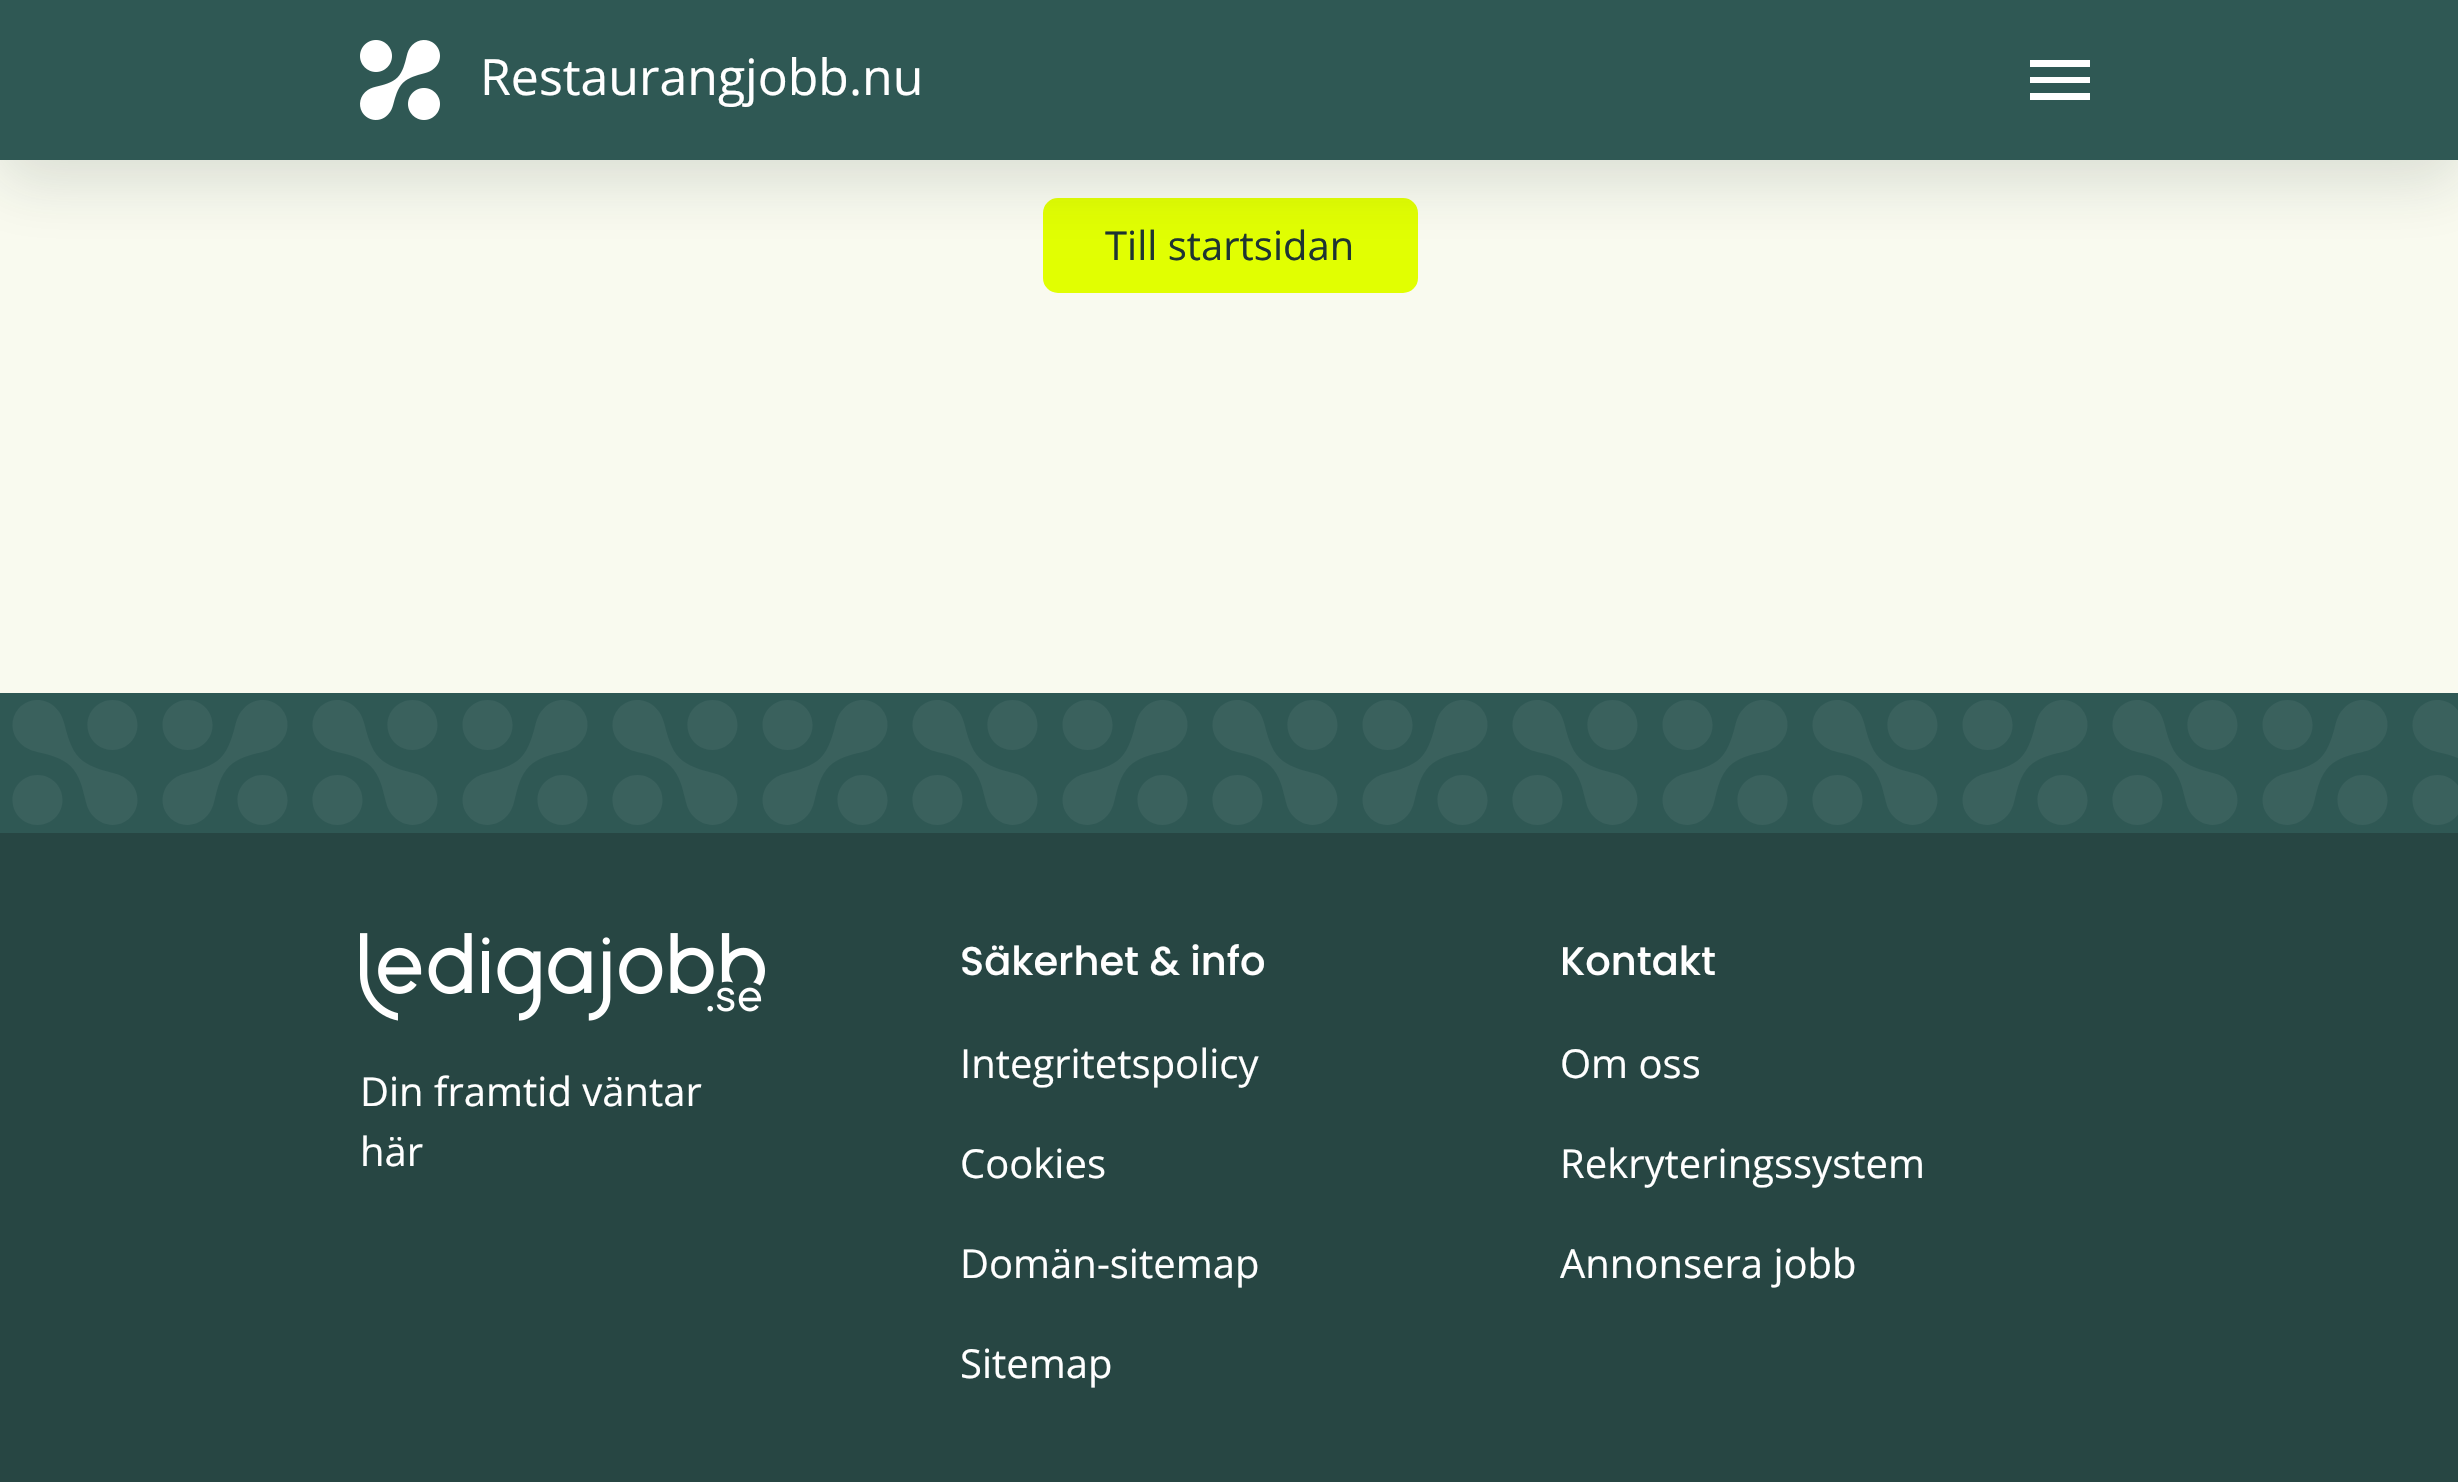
void draw(SkCanvas* canvas) {
    SkPaint paint;
    paint.setAntiAlias(true);
    canvas->clear(0xFFF9FAEF);
    paint.setColor(0xFFE1FF01);
    canvas->drawRoundRect(SkRect::MakeXYWH(1044.5f, 199.5f, 372, 92), 13.5f, 13.5f, paint);
    paint.setStyle(SkPaint::kStroke_Style);
    paint.setStrokeWidth(3);
    canvas->drawRoundRect(SkRect::MakeXYWH(1044.5f, 199.5f, 372, 92), 13.5f, 13.5f, paint);
    paint.setStyle(SkPaint::kFill_Style);
    paint.setColor(0x261E3432);
    paint.setMaskFilter(SkMaskFilter::MakeBlur(kNormal_SkBlurStyle, 32.5f));
    canvas->drawRect(SkRect::MakeXYWH(0, 20, 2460, 160), paint);
    paint.setMaskFilter(nullptr);
    paint.setColor(0xFF2F5854);
    canvas->drawRect(SkRect::MakeXYWH(0, 0, 2458, 160), paint);
    canvas->drawImageRect(SkImages::DeferredFromEncodedData(SkData::MakeFromFileName("img1.png")), SkRect::MakeXYWH(360, 40, 80, 80), SkSamplingOptions());
    SkFont font1(fontMgr->matchFamilyStyle("Open Sans", SkFontStyle::Normal()), 50);
    font1.setSubpixel(true);
    paint.setColor(0xFFFFFFFF);
    canvas->drawString("Restaurangjobb.nu", 480, 95, font1, paint);
    canvas->drawPath(SkPathBuilder().moveTo(2030, 100).lineTo(2030, 93).lineTo(2090, 93).lineTo(2090, 100).close().moveTo(2030, 83).lineTo(2030, 77).lineTo(2090, 77).lineTo(2090, 83).close().moveTo(2030, 67).lineTo(2030, 60).lineTo(2090, 60).lineTo(2090, 67).close().detach(), paint);
    SkFont font2(fontMgr->matchFamilyStyle("Open Sans", SkFontStyle::Normal()), 40);
    font2.setSubpixel(true);
    paint.setColor(0xFF1E3432);
    canvas->drawString("Till startsidan", 1105, 260, font2, paint);
    paint.setColor(0xFF274643);
    canvas->drawRect(SkRect::MakeXYWH(0, 833, 2458, 649), paint);
    paint.setColor(0xFF2F5854);
    canvas->drawRect(SkRect::MakeXYWH(0, 693, 2458, 140), paint);
    canvas->drawImageRect(SkImages::DeferredFromEncodedData(SkData::MakeFromFileName("img2.png")), SkRect::MakeXYWH(12, 700, 2446, 125), SkSamplingOptions());
    canvas->drawImageRect(SkImages::DeferredFromEncodedData(SkData::MakeFromFileName("img3.png")), SkRect::MakeXYWH(360, 933, 405, 88), SkSamplingOptions());
    paint.setColor(0xFFFFFFFF);
    canvas->drawString("Din framtid väntar", 360, 1106, font2, paint);
    canvas->drawString("här", 360, 1166, font2, paint);
    SkFont font3(fontMgr->matchFamilyStyle("Poppins", SkFontStyle(500, SkFontStyle::kNormal_Width, SkFontStyle::kUpright_Slant)), 40);
    font3.setSubpixel(true);
    canvas->drawString("Säkerhet & info", 960, 975, font3, paint);
    canvas->drawString("Integritetspolicy", 960, 1078, font2, paint);
    canvas->drawString("Cookies", 960, 1178, font2, paint);
    canvas->drawString("Domän-sitemap", 960, 1278, font2, paint);
    canvas->drawString("Sitemap", 960, 1378, font2, paint);
    canvas->drawString("Kontakt", 1560, 975, font3, paint);
    canvas->drawString("Om oss", 1560, 1078, font2, paint);
    canvas->drawString("Rekryteringssystem", 1560, 1178, font2, paint);
    canvas->drawString("Annonsera jobb", 1560, 1278, font2, paint);
}
